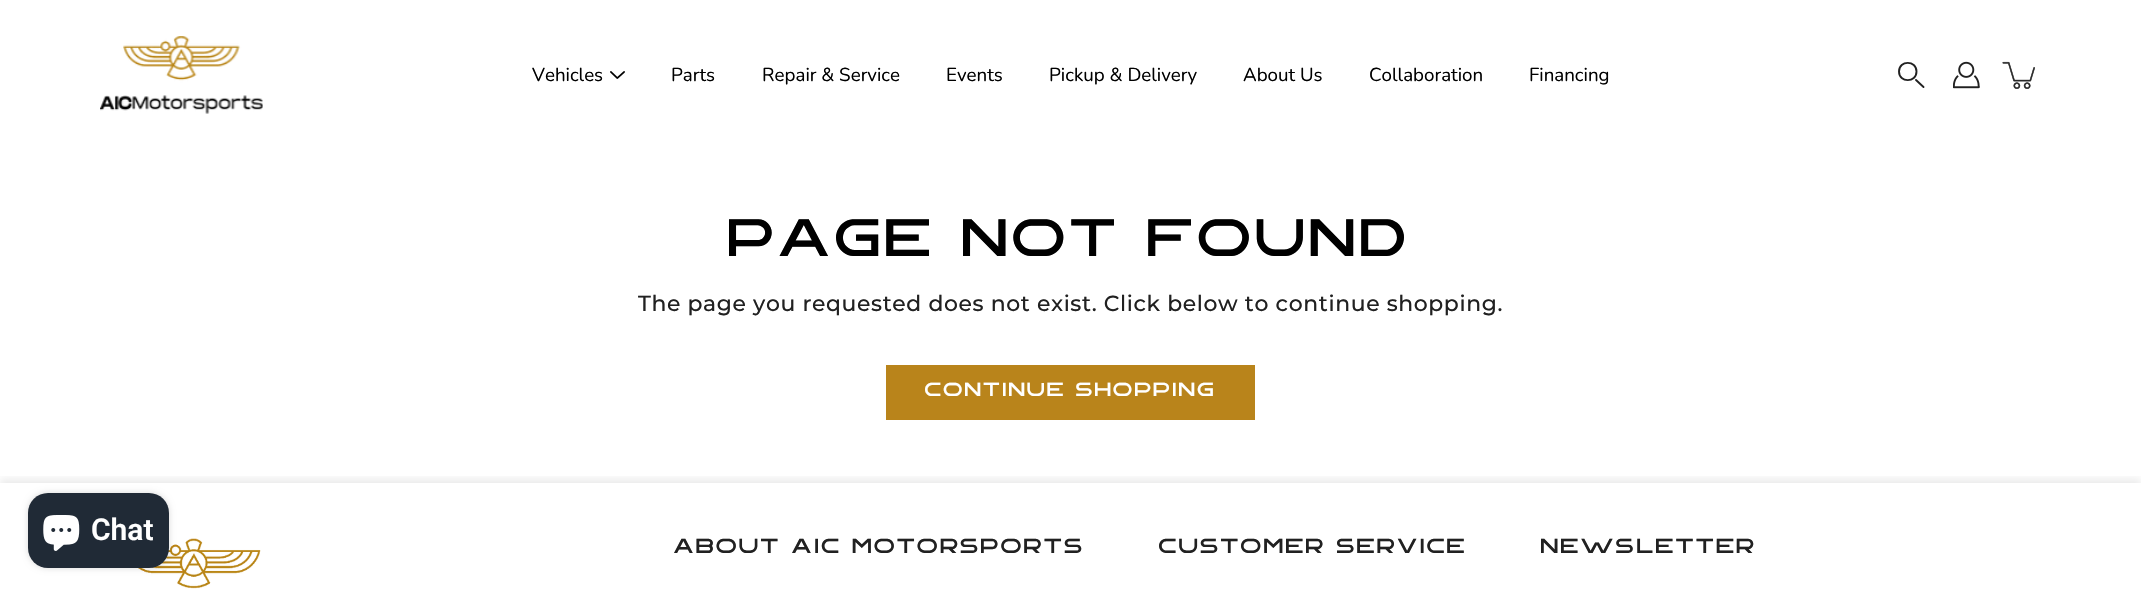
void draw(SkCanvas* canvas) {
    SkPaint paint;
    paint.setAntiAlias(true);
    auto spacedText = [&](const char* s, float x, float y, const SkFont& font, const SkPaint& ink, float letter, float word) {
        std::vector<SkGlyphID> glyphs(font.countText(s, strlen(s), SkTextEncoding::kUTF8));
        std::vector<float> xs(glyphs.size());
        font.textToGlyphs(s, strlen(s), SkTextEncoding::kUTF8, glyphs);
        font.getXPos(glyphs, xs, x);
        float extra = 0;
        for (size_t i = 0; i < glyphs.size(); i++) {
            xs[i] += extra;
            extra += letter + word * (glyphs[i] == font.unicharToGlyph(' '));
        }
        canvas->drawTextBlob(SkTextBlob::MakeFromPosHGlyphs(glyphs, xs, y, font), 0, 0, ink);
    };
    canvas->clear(0xFFFFFFFF);
    canvas->save();
    canvas->clipRect(SkRect::MakeXYWH(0, 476, 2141, 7));
    paint.setColor(0x14000000);
    paint.setMaskFilter(SkMaskFilter::MakeBlur(kNormal_SkBlurStyle, 4));
    canvas->drawRect(SkRect::MakeXYWH(0, 479, 2141, 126), paint);
    paint.setMaskFilter(nullptr);
    canvas->restore();
    canvas->drawImageRect(SkImages::DeferredFromEncodedData(SkData::MakeFromFileName("img6.png")), SkRect::MakeXYWH(138, 538, 123, 51), SkSamplingOptions());
    paint.setColor(0x26000000);
    paint.setMaskFilter(SkMaskFilter::MakeBlur(kNormal_SkBlurStyle, 3));
    canvas->drawRoundRect(SkRect::MakeXYWH(28, 493, 141, 75), 20, 20, paint);
    paint.setMaskFilter(nullptr);
    paint.setColor(0xFF202A36);
    canvas->drawRoundRect(SkRect::MakeXYWH(28, 493, 141, 75), 20, 20, paint);
    canvas->drawImageRect(SkImages::DeferredFromEncodedData(SkData::MakeFromFileName("img1.png")), SkRect::MakeXYWH(43, 515, 37, 36), SkSamplingOptions());
    SkFont font1(fontMgr->matchFamilyStyle("Roboto", SkFontStyle(600, SkFontStyle::kNormal_Width, SkFontStyle::kUpright_Slant)), 30);
    font1.setSubpixel(true);
    paint.setColor(0xFFFFFFFF);
    canvas->drawString("Chat", 91, 540, font1, paint);
    canvas->drawImageRect(SkImages::DeferredFromEncodedData(SkData::MakeFromFileName("img2.png")), SkRect::MakeXYWH(100, 36, 163, 78), SkSamplingOptions());
    SkFont font2(fontMgr->matchFamilyStyle("Nunito", SkFontStyle::Normal()), 18.75f);
    font2.setSubpixel(true);
    paint.setColor(0xFF000000);
    canvas->drawString("Vehicles", 532, 81, font2, paint);
    canvas->drawImageRect(SkImages::DeferredFromEncodedData(SkData::MakeFromFileName("img3.png")), SkRect::MakeXYWH(610, 71, 15, 8), SkSamplingOptions());
    canvas->drawString("Parts", 671, 81, font2, paint);
    canvas->drawString("Repair & Service", 762, 81, font2, paint);
    canvas->drawString("Events", 946, 81, font2, paint);
    canvas->drawString("Pickup & Delivery", 1049, 81, font2, paint);
    canvas->drawString("About Us", 1243, 81, font2, paint);
    canvas->drawString("Collaboration", 1369, 81, font2, paint);
    canvas->drawString("Financing", 1529, 81, font2, paint);
    paint.setStyle(SkPaint::kStroke_Style);
    paint.setStrokeWidth(1.9f);
    paint.setColor(0xFF212121);
    canvas->drawPath(SkPathBuilder().moveTo(1916.5f, 71.5f).cubicTo(1916.5f, 83, 1899, 83, 1899, 71.5f).cubicTo(1899, 60, 1916.5f, 60, 1916.5f, 71.5f).close().detach(), paint);
    paint.setStrokeCap(SkPaint::kRound_Cap);
    canvas->drawPath(SkPathBuilder().moveTo(1916, 80).lineTo(1923.5f, 87).detach(), paint);
    canvas->drawImageRect(SkImages::DeferredFromEncodedData(SkData::MakeFromFileName("img4.png")), SkRect::MakeXYWH(1953, 61, 27, 28), SkSamplingOptions());
    canvas->drawImageRect(SkImages::DeferredFromEncodedData(SkData::MakeFromFileName("img5.png")), SkRect::MakeXYWH(2002, 61, 33, 28), SkSamplingOptions());
    SkFont font3(fontMgr->matchFamilyStyle("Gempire", SkFontStyle::Normal()), 52.5f);
    font3.setSubpixel(true);
    paint.setStyle(SkPaint::kFill_Style);
    paint.setColor(0xFF000000);
    canvas->drawString("Page not found", 729, 256, font3, paint);
    SkFont font4(fontMgr->matchFamilyStyle("Montserrat", SkFontStyle(500, SkFontStyle::kNormal_Width, SkFontStyle::kUpright_Slant)), 21.9f);
    font4.setSubpixel(true);
    paint.setColor(0xFF212121);
    spacedText("The page you requested does not exist. Click below to continue shopping.", 638, 311, font4, paint, 0.62f, 0);
    paint.setColor(0xFFB9841B);
    canvas->drawRect(SkRect::MakeXYWH(886, 365, 369, 55), paint);
    SkFont font5(fontMgr->matchFamilyStyle("Gempire", SkFontStyle::Normal()), 18.75f);
    font5.setSubpixel(true);
    paint.setColor(0xFFFFFFFF);
    spacedText("Continue Shopping", 925, 396, font5, paint, 0.62f, 0);
    SkFont font6(fontMgr->matchFamilyStyle("Gempire", SkFontStyle::Normal()), 20.3f);
    font6.setSubpixel(true);
    paint.setColor(0xFF212121);
    spacedText("About AIC Motorsports", 674, 553, font6, paint, 0.62f, 0);
    spacedText("Customer Service", 1159, 553, font6, paint, 0.62f, 0);
    spacedText("Newsletter", 1541, 553, font6, paint, 0.62f, 0);
}
